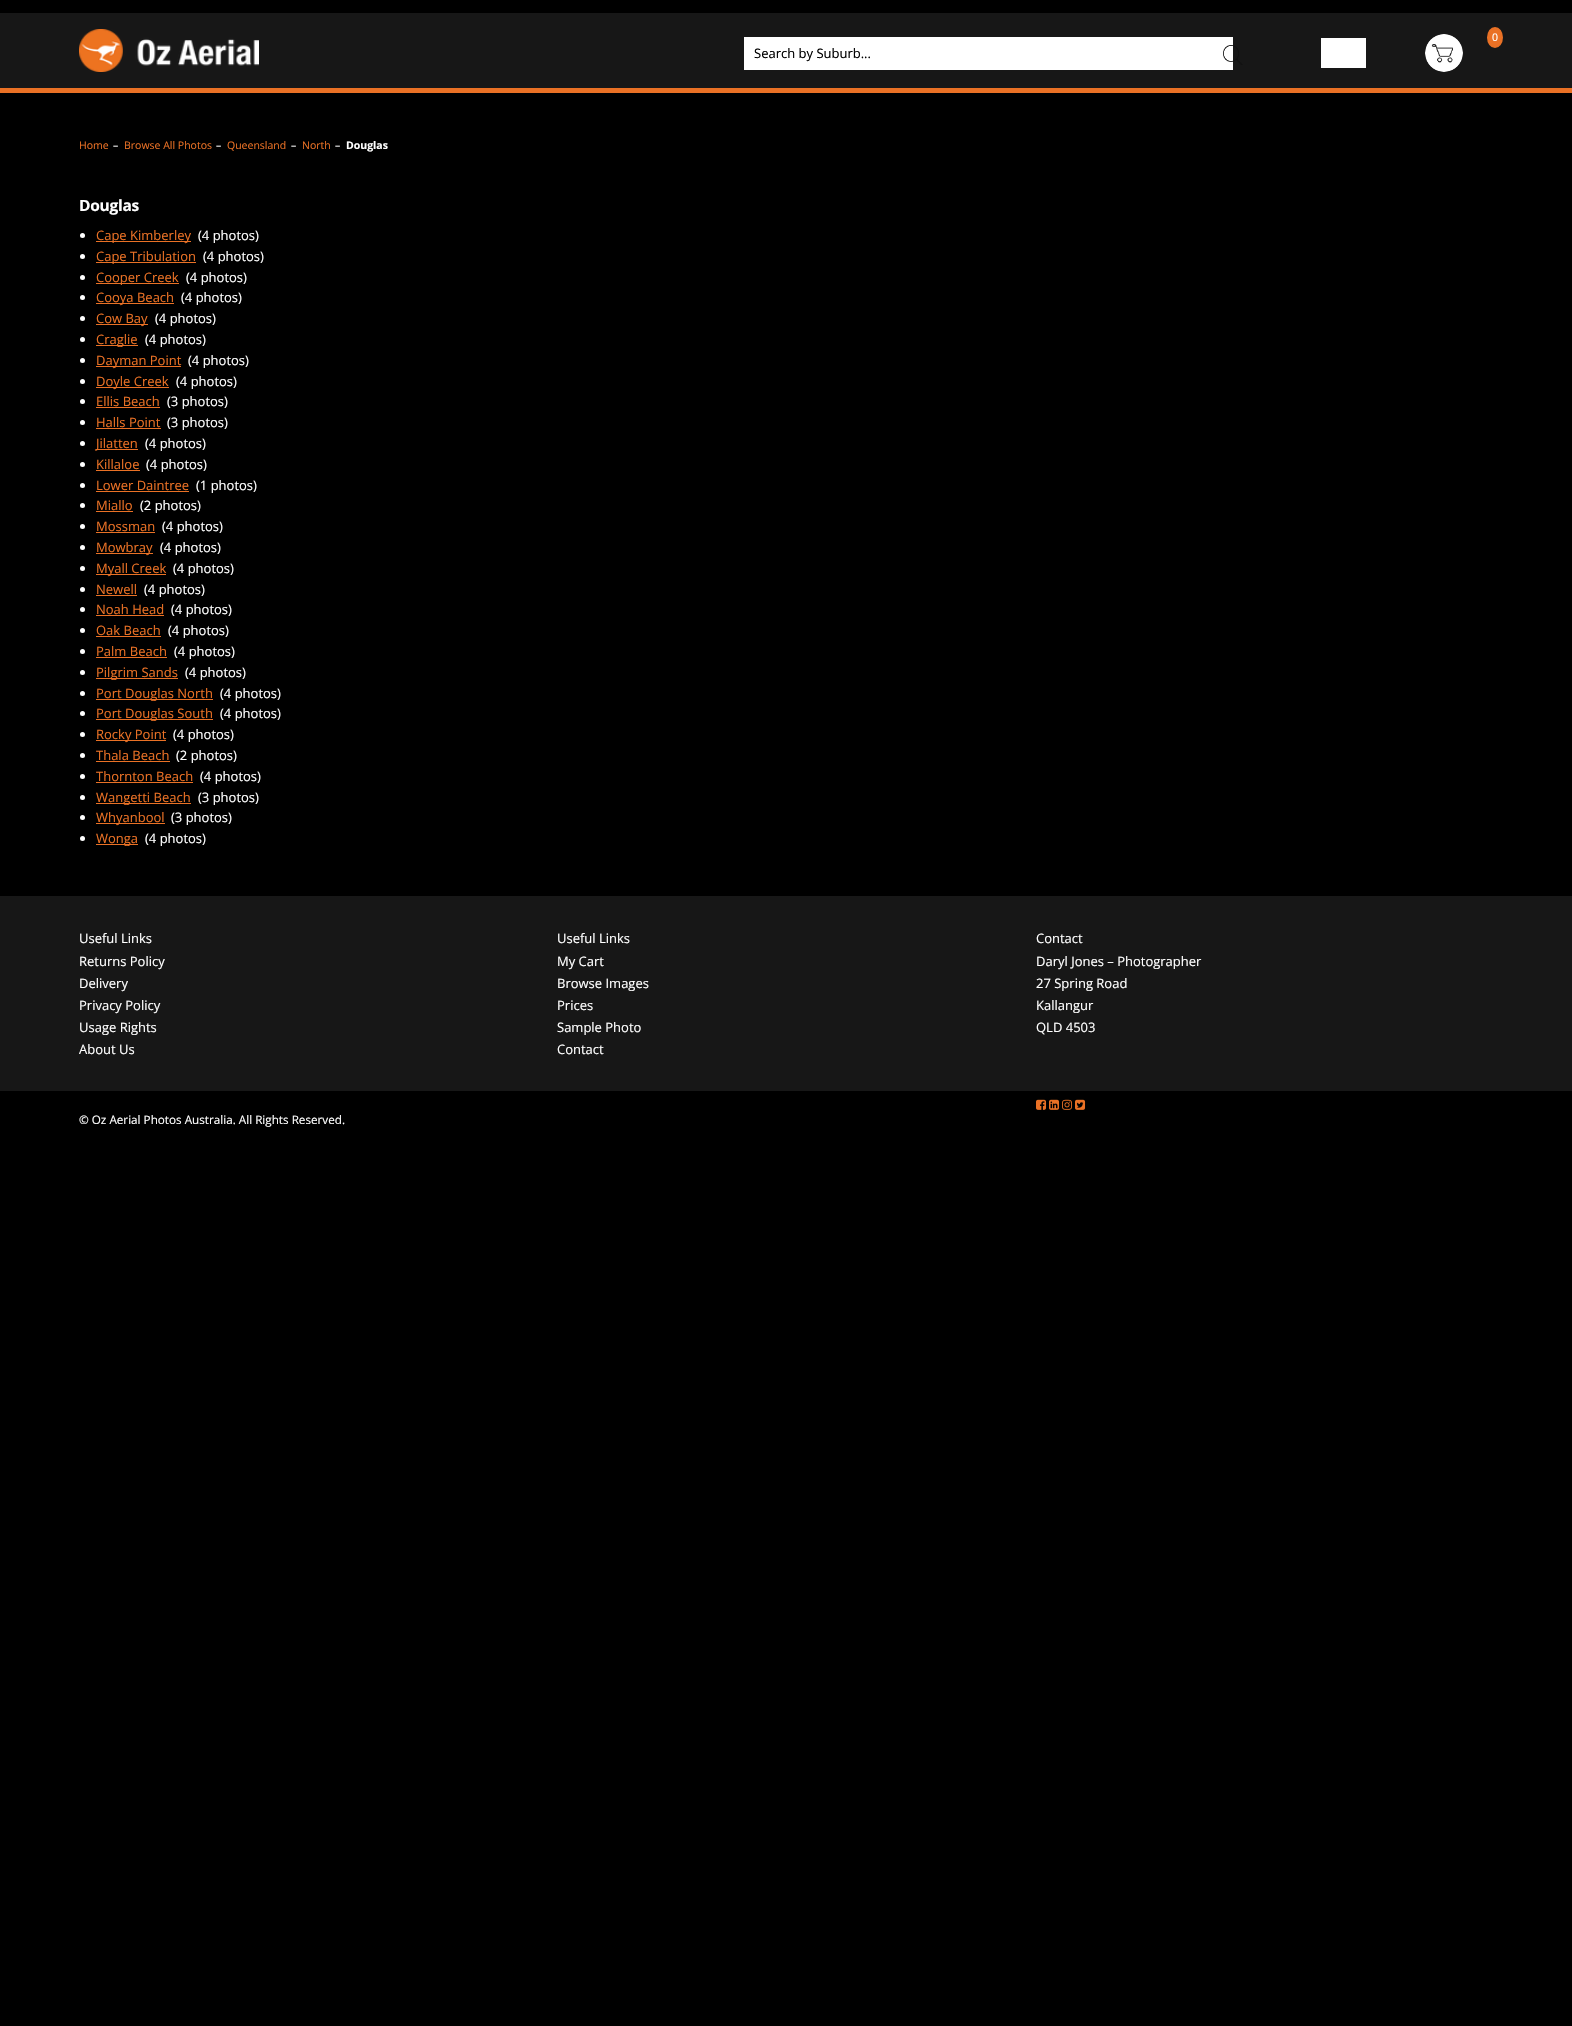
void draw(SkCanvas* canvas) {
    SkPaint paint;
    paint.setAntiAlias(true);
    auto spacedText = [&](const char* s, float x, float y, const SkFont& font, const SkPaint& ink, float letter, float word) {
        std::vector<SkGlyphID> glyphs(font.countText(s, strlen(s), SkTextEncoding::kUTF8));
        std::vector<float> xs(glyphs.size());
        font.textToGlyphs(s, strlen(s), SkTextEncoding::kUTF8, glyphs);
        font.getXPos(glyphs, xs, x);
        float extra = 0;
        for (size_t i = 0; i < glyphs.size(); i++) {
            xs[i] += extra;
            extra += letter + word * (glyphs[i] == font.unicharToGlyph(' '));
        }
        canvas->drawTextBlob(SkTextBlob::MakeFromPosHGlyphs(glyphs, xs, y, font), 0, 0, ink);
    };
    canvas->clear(0xFF000000);
    paint.setColor(0xFF171717);
    canvas->drawRect(SkRect::MakeXYWH(0, 13, 1572, 75), paint);
    paint.setColor(0xFFEA7125);
    canvas->drawRect(SkRect::MakeXYWH(0, 88, 1572, 5), paint);
    canvas->drawImageRect(SkImages::DeferredFromEncodedData(SkData::MakeFromFileName("img1.png")), SkRect::MakeXYWH(79, 29, 180, 43), SkSamplingOptions());
    paint.setColor(0xFFFFFFFF);
    canvas->drawRect(SkRect::MakeXYWH(744, 37, 489, 33), paint);
    SkFont font1(fontMgr->matchFamilyStyle("Open Sans", SkFontStyle::Normal()), 13);
    font1.setSubpixel(true);
    paint.setColor(0xFF000000);
    canvas->drawString("Search by Suburb...", 754, 58, font1, paint);
    canvas->drawImageRect(SkImages::DeferredFromEncodedData(SkData::MakeFromFileName("img2.png")), SkRect::MakeXYWH(1223, 45, 20, 20), SkSamplingOptions());
    paint.setColor(0xFFFFFFFF);
    canvas->drawRect(SkRect::MakeXYWH(1321, 38, 45, 30), paint);
    canvas->drawImageRect(SkImages::DeferredFromEncodedData(SkData::MakeFromFileName("img3.png")), SkRect::MakeXYWH(1425, 34, 38, 38), SkSamplingOptions());
    paint.setColor(0xFFEA7125);
    canvas->drawOval(SkRect::MakeXYWH(1487, 27, 16, 21), paint);
    SkFont font2(fontMgr->matchFamilyStyle("Open Sans", SkFontStyle::Normal()), 10.5f);
    font2.setSubpixel(true);
    paint.setColor(0xFFFFFFFF);
    spacedText("0", 1492, 41, font2, paint, -1, 0);
    paint.setColor(0xFFEA7125);
    canvas->drawString("Home", 79, 149, font2, paint);
    paint.setColor(0xFFFFFFFF);
    canvas->drawString("–", 113, 149, font2, paint);
    paint.setColor(0xFFEA7125);
    canvas->drawString("Browse All Photos", 124, 149, font2, paint);
    paint.setColor(0xFFFFFFFF);
    canvas->drawString("–", 216, 149, font2, paint);
    paint.setColor(0xFFEA7125);
    canvas->drawString("Queensland", 227, 149, font2, paint);
    paint.setColor(0xFFFFFFFF);
    canvas->drawString("–", 291, 149, font2, paint);
    paint.setColor(0xFFEA7125);
    canvas->drawString("North", 302, 149, font2, paint);
    paint.setColor(0xFFFFFFFF);
    canvas->drawString("–", 335, 149, font2, paint);
    SkFont font3(fontMgr->matchFamilyStyle("Open Sans", SkFontStyle::Bold()), 10.5f);
    font3.setSubpixel(true);
    canvas->drawString("Douglas", 346, 149, font3, paint);
    SkFont font4(fontMgr->matchFamilyStyle("Open Sans", SkFontStyle::Bold()), 15.5f);
    font4.setSubpixel(true);
    spacedText("Douglas", 79, 211, font4, paint, -0.25f, 0);
    canvas->drawCircle(82.5f, 235.5f, 2.5f, paint);
    paint.setColor(0xFFEA7125);
    canvas->drawRect(SkRect::MakeXYWH(96, 241, 95, 1), paint);
    canvas->drawString("Cape Kimberley", 96, 240, font1, paint);
    paint.setColor(0xFFFFFFFF);
    canvas->drawString("(4 photos)", 198, 240, font1, paint);
    canvas->drawCircle(82.5f, 256.5f, 2.5f, paint);
    paint.setColor(0xFFEA7125);
    canvas->drawRect(SkRect::MakeXYWH(96, 262, 100, 1), paint);
    canvas->drawString("Cape Tribulation", 96, 261, font1, paint);
    paint.setColor(0xFFFFFFFF);
    canvas->drawString("(4 photos)", 203, 261, font1, paint);
    canvas->drawCircle(82.5f, 277.5f, 2.5f, paint);
    paint.setColor(0xFFEA7125);
    canvas->drawRect(SkRect::MakeXYWH(96, 283, 83, 1), paint);
    canvas->drawString("Cooper Creek", 96, 282, font1, paint);
    paint.setColor(0xFFFFFFFF);
    canvas->drawString("(4 photos)", 186, 282, font1, paint);
    canvas->drawCircle(82.5f, 297.5f, 2.5f, paint);
    paint.setColor(0xFFEA7125);
    canvas->drawRect(SkRect::MakeXYWH(96, 303, 78, 1), paint);
    canvas->drawString("Cooya Beach", 96, 302, font1, paint);
    paint.setColor(0xFFFFFFFF);
    canvas->drawString("(4 photos)", 181, 302, font1, paint);
    canvas->drawCircle(82.5f, 318.5f, 2.5f, paint);
    paint.setColor(0xFFEA7125);
    canvas->drawRect(SkRect::MakeXYWH(96, 324, 52, 1), paint);
    canvas->drawString("Cow Bay", 96, 323, font1, paint);
    paint.setColor(0xFFFFFFFF);
    canvas->drawString("(4 photos)", 155, 323, font1, paint);
    canvas->drawCircle(82.5f, 339.5f, 2.5f, paint);
    paint.setColor(0xFFEA7125);
    canvas->drawRect(SkRect::MakeXYWH(96, 345, 42, 1), paint);
    canvas->drawString("Craglie", 96, 344, font1, paint);
    paint.setColor(0xFFFFFFFF);
    canvas->drawString("(4 photos)", 145, 344, font1, paint);
    canvas->drawCircle(82.5f, 360.5f, 2.5f, paint);
    paint.setColor(0xFFEA7125);
    canvas->drawRect(SkRect::MakeXYWH(96, 366, 85, 1), paint);
    canvas->drawString("Dayman Point", 96, 365, font1, paint);
    paint.setColor(0xFFFFFFFF);
    canvas->drawString("(4 photos)", 188, 365, font1, paint);
    canvas->drawCircle(82.5f, 381.5f, 2.5f, paint);
    paint.setColor(0xFFEA7125);
    canvas->drawRect(SkRect::MakeXYWH(96, 387, 73, 1), paint);
    canvas->drawString("Doyle Creek", 96, 386, font1, paint);
    paint.setColor(0xFFFFFFFF);
    canvas->drawString("(4 photos)", 176, 386, font1, paint);
    canvas->drawCircle(82.5f, 401.5f, 2.5f, paint);
    paint.setColor(0xFFEA7125);
    canvas->drawString("Ellis Beach", 96, 406, font1, paint);
    canvas->drawRect(SkRect::MakeXYWH(96, 407, 64, 1), paint);
    paint.setColor(0xFFFFFFFF);
    canvas->drawString("(3 photos)", 167, 406, font1, paint);
    canvas->drawCircle(82.5f, 422.5f, 2.5f, paint);
    paint.setColor(0xFFEA7125);
    canvas->drawString("Halls Point", 96, 427, font1, paint);
    canvas->drawRect(SkRect::MakeXYWH(96, 428, 65, 1), paint);
    paint.setColor(0xFFFFFFFF);
    canvas->drawString("(3 photos)", 167, 427, font1, paint);
    canvas->drawCircle(82.5f, 443.5f, 2.5f, paint);
    paint.setColor(0xFFEA7125);
    canvas->drawRect(SkRect::MakeXYWH(96, 449, 42, 1), paint);
    canvas->drawString("Jilatten", 96, 448, font1, paint);
    paint.setColor(0xFFFFFFFF);
    canvas->drawString("(4 photos)", 145, 448, font1, paint);
    canvas->drawCircle(82.5f, 464.5f, 2.5f, paint);
    paint.setColor(0xFFEA7125);
    canvas->drawString("Killaloe", 96, 469, font1, paint);
    canvas->drawRect(SkRect::MakeXYWH(96, 470, 44, 1), paint);
    paint.setColor(0xFFFFFFFF);
    canvas->drawString("(4 photos)", 146, 469, font1, paint);
    canvas->drawCircle(82.5f, 485.5f, 2.5f, paint);
    paint.setColor(0xFFEA7125);
    canvas->drawString("Lower Daintree", 96, 490, font1, paint);
    canvas->drawRect(SkRect::MakeXYWH(96, 491, 93, 1), paint);
    paint.setColor(0xFFFFFFFF);
    canvas->drawString("(1 photos)", 196, 490, font1, paint);
    canvas->drawCircle(82.5f, 505.5f, 2.5f, paint);
    paint.setColor(0xFFEA7125);
    canvas->drawString("Miallo", 96, 510, font1, paint);
    canvas->drawRect(SkRect::MakeXYWH(96, 511, 37, 1), paint);
    paint.setColor(0xFFFFFFFF);
    canvas->drawString("(2 photos)", 140, 510, font1, paint);
    canvas->drawCircle(82.5f, 526.5f, 2.5f, paint);
    paint.setColor(0xFFEA7125);
    canvas->drawString("Mossman", 96, 531, font1, paint);
    canvas->drawRect(SkRect::MakeXYWH(96, 532, 59, 1), paint);
    paint.setColor(0xFFFFFFFF);
    canvas->drawString("(4 photos)", 162, 531, font1, paint);
    canvas->drawCircle(82.5f, 547.5f, 2.5f, paint);
    paint.setColor(0xFFEA7125);
    canvas->drawRect(SkRect::MakeXYWH(96, 553, 57, 1), paint);
    canvas->drawString("Mowbray", 96, 552, font1, paint);
    paint.setColor(0xFFFFFFFF);
    canvas->drawString("(4 photos)", 160, 552, font1, paint);
    canvas->drawCircle(82.5f, 568.5f, 2.5f, paint);
    paint.setColor(0xFFEA7125);
    canvas->drawRect(SkRect::MakeXYWH(96, 574, 70, 1), paint);
    canvas->drawString("Myall Creek", 96, 573, font1, paint);
    paint.setColor(0xFFFFFFFF);
    canvas->drawString("(4 photos)", 173, 573, font1, paint);
    canvas->drawCircle(82.5f, 589.5f, 2.5f, paint);
    paint.setColor(0xFFEA7125);
    canvas->drawString("Newell", 96, 594, font1, paint);
    canvas->drawRect(SkRect::MakeXYWH(96, 595, 41, 1), paint);
    paint.setColor(0xFFFFFFFF);
    canvas->drawString("(4 photos)", 144, 594, font1, paint);
    canvas->drawCircle(82.5f, 609.5f, 2.5f, paint);
    paint.setColor(0xFFEA7125);
    canvas->drawString("Noah Head", 96, 614, font1, paint);
    canvas->drawRect(SkRect::MakeXYWH(96, 615, 68, 1), paint);
    paint.setColor(0xFFFFFFFF);
    canvas->drawString("(4 photos)", 171, 614, font1, paint);
    canvas->drawCircle(82.5f, 630.5f, 2.5f, paint);
    paint.setColor(0xFFEA7125);
    canvas->drawString("Oak Beach", 96, 635, font1, paint);
    canvas->drawRect(SkRect::MakeXYWH(96, 636, 65, 1), paint);
    paint.setColor(0xFFFFFFFF);
    canvas->drawString("(4 photos)", 168, 635, font1, paint);
    canvas->drawCircle(82.5f, 651.5f, 2.5f, paint);
    paint.setColor(0xFFEA7125);
    canvas->drawString("Palm Beach", 96, 656, font1, paint);
    canvas->drawRect(SkRect::MakeXYWH(96, 657, 71, 1), paint);
    paint.setColor(0xFFFFFFFF);
    canvas->drawString("(4 photos)", 174, 656, font1, paint);
    canvas->drawCircle(82.5f, 672.5f, 2.5f, paint);
    paint.setColor(0xFFEA7125);
    canvas->drawRect(SkRect::MakeXYWH(96, 678, 82, 1), paint);
    canvas->drawString("Pilgrim Sands", 96, 677, font1, paint);
    paint.setColor(0xFFFFFFFF);
    canvas->drawString("(4 photos)", 185, 677, font1, paint);
    canvas->drawCircle(82.5f, 693.5f, 2.5f, paint);
    paint.setColor(0xFFEA7125);
    canvas->drawRect(SkRect::MakeXYWH(96, 699, 117, 1), paint);
    canvas->drawString("Port Douglas North", 96, 698, font1, paint);
    paint.setColor(0xFFFFFFFF);
    canvas->drawString("(4 photos)", 220, 698, font1, paint);
    canvas->drawCircle(82.5f, 713.5f, 2.5f, paint);
    paint.setColor(0xFFEA7125);
    canvas->drawRect(SkRect::MakeXYWH(96, 719, 117, 1), paint);
    canvas->drawString("Port Douglas South", 96, 718, font1, paint);
    paint.setColor(0xFFFFFFFF);
    canvas->drawString("(4 photos)", 220, 718, font1, paint);
    canvas->drawCircle(82.5f, 734.5f, 2.5f, paint);
    paint.setColor(0xFFEA7125);
    canvas->drawRect(SkRect::MakeXYWH(96, 740, 70, 1), paint);
    canvas->drawString("Rocky Point", 96, 739, font1, paint);
    paint.setColor(0xFFFFFFFF);
    canvas->drawString("(4 photos)", 173, 739, font1, paint);
    canvas->drawCircle(82.5f, 755.5f, 2.5f, paint);
    paint.setColor(0xFFEA7125);
    canvas->drawString("Thala Beach", 96, 760, font1, paint);
    canvas->drawRect(SkRect::MakeXYWH(96, 761, 74, 1), paint);
    paint.setColor(0xFFFFFFFF);
    canvas->drawString("(2 photos)", 176, 760, font1, paint);
    canvas->drawCircle(82.5f, 776.5f, 2.5f, paint);
    paint.setColor(0xFFEA7125);
    canvas->drawString("Thornton Beach", 96, 781, font1, paint);
    canvas->drawRect(SkRect::MakeXYWH(96, 782, 97, 1), paint);
    paint.setColor(0xFFFFFFFF);
    canvas->drawString("(4 photos)", 200, 781, font1, paint);
    canvas->drawCircle(82.5f, 797.5f, 2.5f, paint);
    paint.setColor(0xFFEA7125);
    canvas->drawRect(SkRect::MakeXYWH(96, 803, 95, 1), paint);
    canvas->drawString("Wangetti Beach", 96, 802, font1, paint);
    paint.setColor(0xFFFFFFFF);
    canvas->drawString("(3 photos)", 198, 802, font1, paint);
    canvas->drawCircle(82.5f, 817.5f, 2.5f, paint);
    paint.setColor(0xFFEA7125);
    canvas->drawRect(SkRect::MakeXYWH(96, 823, 69, 1), paint);
    canvas->drawString("Whyanbool", 96, 822, font1, paint);
    paint.setColor(0xFFFFFFFF);
    canvas->drawString("(3 photos)", 171, 822, font1, paint);
    canvas->drawCircle(82.5f, 838.5f, 2.5f, paint);
    paint.setColor(0xFFEA7125);
    canvas->drawRect(SkRect::MakeXYWH(96, 844, 42, 1), paint);
    canvas->drawString("Wonga", 96, 843, font1, paint);
    paint.setColor(0xFFFFFFFF);
    canvas->drawString("(4 photos)", 145, 843, font1, paint);
    paint.setColor(0xFF171717);
    canvas->drawRect(SkRect::MakeXYWH(0, 896, 1572, 195), paint);
    paint.setColor(0xFFFFFFFF);
    canvas->drawString("Useful Links", 79, 943, font1, paint);
    canvas->drawString("Returns Policy", 79, 966, font1, paint);
    canvas->drawString("Delivery", 79, 988, font1, paint);
    canvas->drawString("Privacy Policy", 79, 1010, font1, paint);
    canvas->drawString("Usage Rights", 79, 1032, font1, paint);
    canvas->drawString("About Us", 79, 1054, font1, paint);
    canvas->drawString("Useful Links", 557, 943, font1, paint);
    canvas->drawString("My Cart", 557, 966, font1, paint);
    canvas->drawString("Browse Images", 557, 988, font1, paint);
    canvas->drawString("Prices", 557, 1010, font1, paint);
    canvas->drawString("Sample Photo", 557, 1032, font1, paint);
    canvas->drawString("Contact", 557, 1054, font1, paint);
    canvas->drawString("Contact", 1036, 943, font1, paint);
    canvas->drawString("Daryl Jones – Photographer", 1036, 966, font1, paint);
    canvas->drawString("27 Spring Road", 1036, 988, font1, paint);
    canvas->drawString("Kallangur", 1036, 1010, font1, paint);
    canvas->drawString("QLD 4503", 1036, 1032, font1, paint);
    canvas->drawImageRect(SkImages::DeferredFromEncodedData(SkData::MakeFromFileName("img4.png")), SkRect::MakeXYWH(1036, 1099, 11, 11), SkSamplingOptions());
    canvas->drawImageRect(SkImages::DeferredFromEncodedData(SkData::MakeFromFileName("img5.png")), SkRect::MakeXYWH(1049, 1099, 11, 11), SkSamplingOptions());
    canvas->drawImageRect(SkImages::DeferredFromEncodedData(SkData::MakeFromFileName("img6.png")), SkRect::MakeXYWH(1062, 1099, 11, 11), SkSamplingOptions());
    canvas->drawImageRect(SkImages::DeferredFromEncodedData(SkData::MakeFromFileName("img7.png")), SkRect::MakeXYWH(1075, 1099, 11, 11), SkSamplingOptions());
    SkFont font5(fontMgr->matchFamilyStyle("Open Sans", SkFontStyle::Normal()), 11.7f);
    font5.setSubpixel(true);
    canvas->drawString("© Oz Aerial Photos Australia. All Rights Reserved.", 79, 1124, font5, paint);
}
